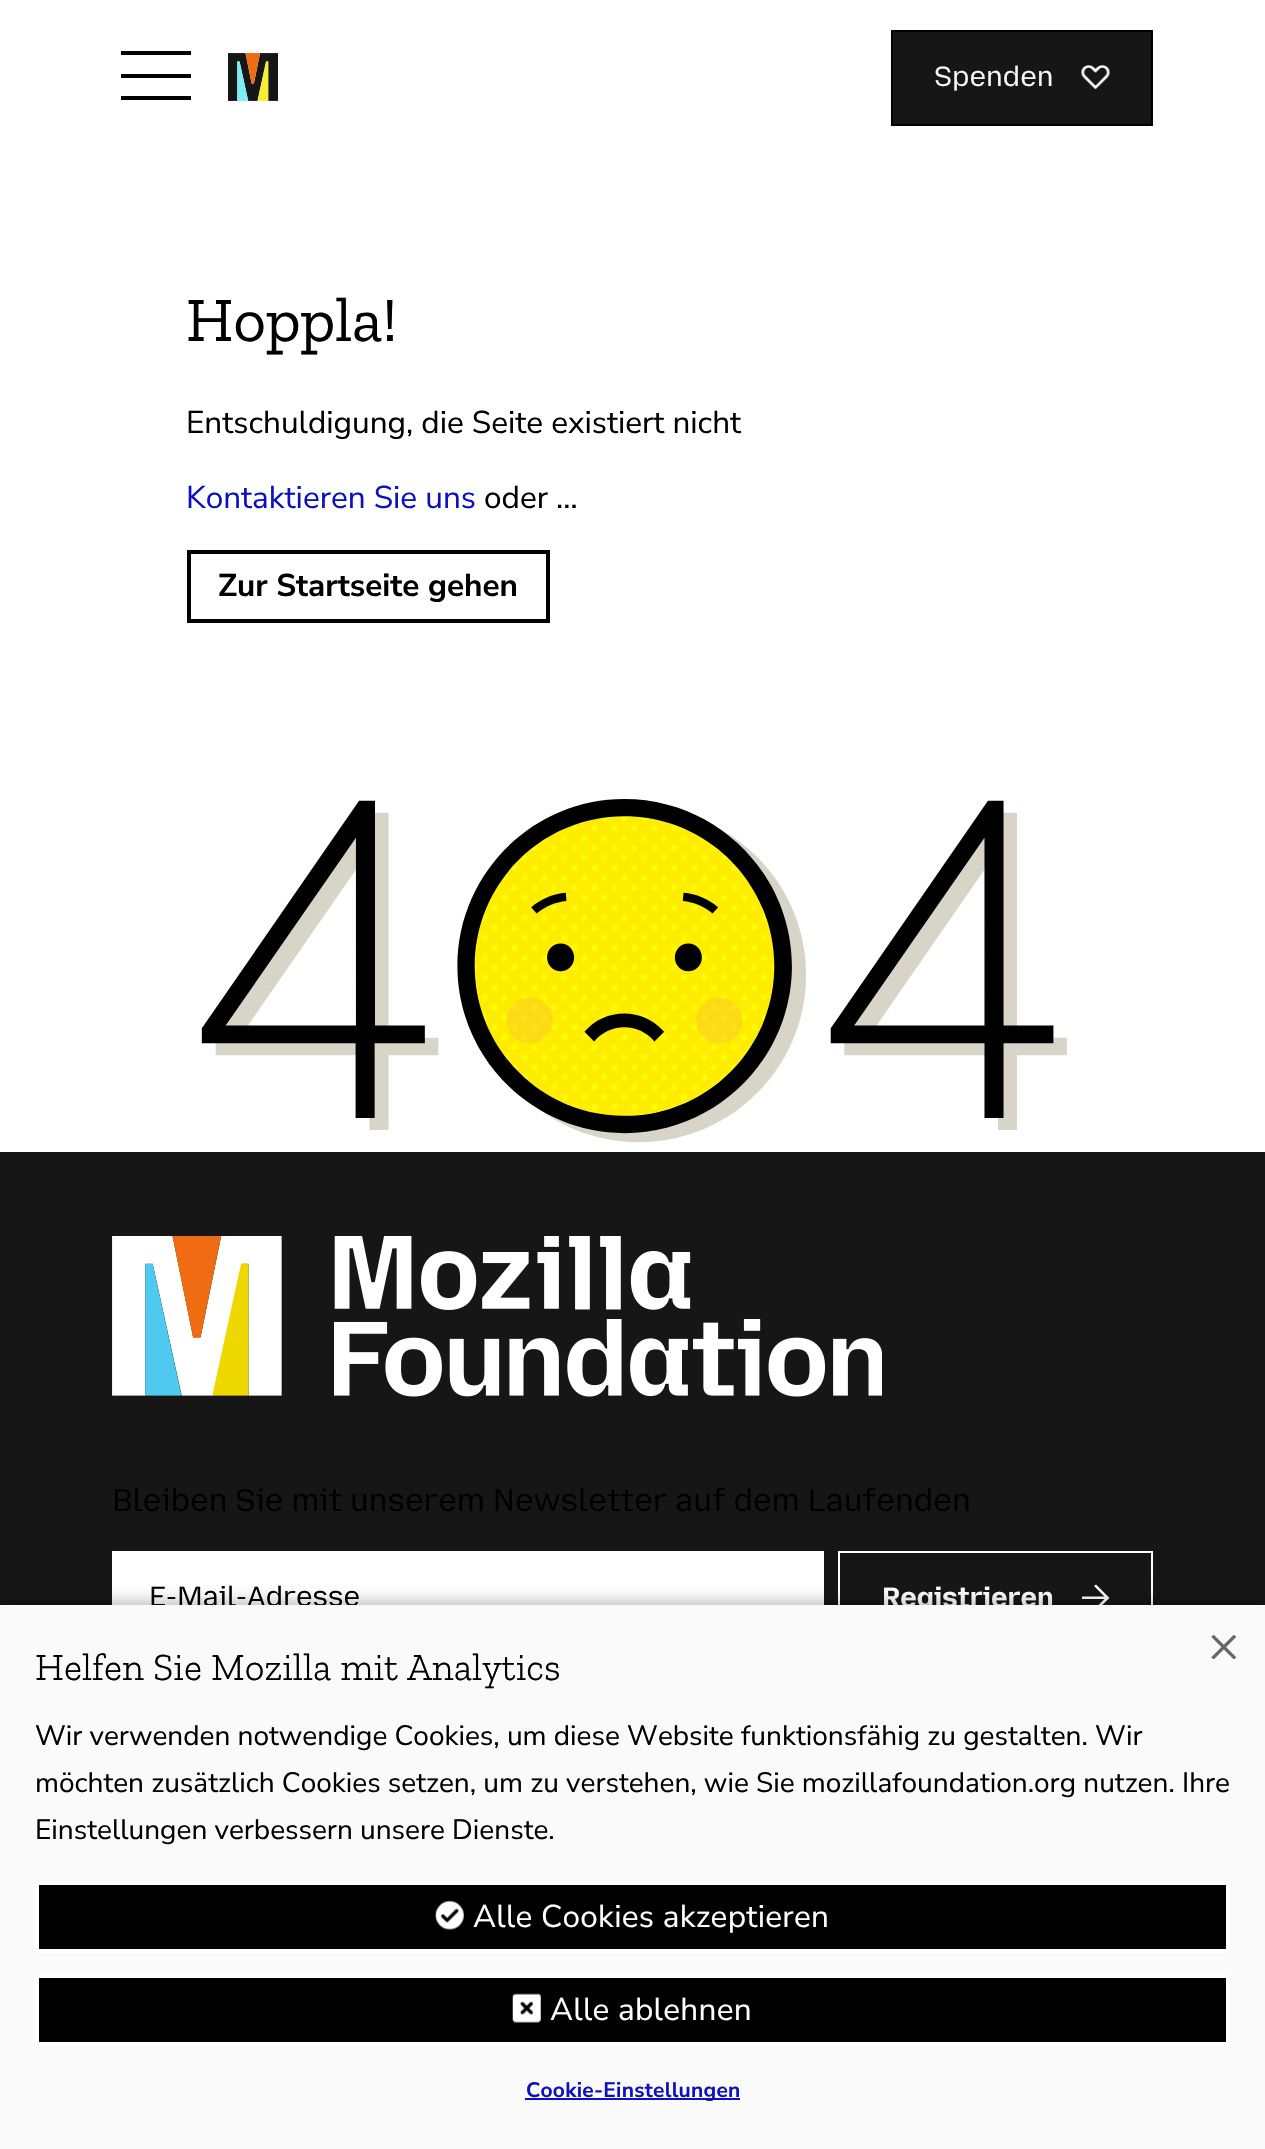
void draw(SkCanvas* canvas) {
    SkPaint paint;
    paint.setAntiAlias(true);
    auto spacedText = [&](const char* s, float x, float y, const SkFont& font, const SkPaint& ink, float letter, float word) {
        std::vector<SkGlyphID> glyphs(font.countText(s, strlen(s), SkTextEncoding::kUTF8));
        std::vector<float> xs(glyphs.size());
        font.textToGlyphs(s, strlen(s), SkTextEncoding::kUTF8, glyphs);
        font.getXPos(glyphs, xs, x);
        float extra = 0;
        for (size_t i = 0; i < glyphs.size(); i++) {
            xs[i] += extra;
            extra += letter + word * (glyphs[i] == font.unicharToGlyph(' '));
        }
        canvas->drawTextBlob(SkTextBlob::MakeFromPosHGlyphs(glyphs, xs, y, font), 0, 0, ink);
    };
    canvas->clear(0xFFFFFFFF);
    paint.setColor(0xFF000000);
    canvas->drawRect(SkRect::MakeXYWH(121, 51, 70, 4), paint);
    canvas->drawRect(SkRect::MakeXYWH(121, 74, 70, 4), paint);
    canvas->drawRect(SkRect::MakeXYWH(121, 96, 70, 4), paint);
    canvas->drawImageRect(SkImages::DeferredFromEncodedData(SkData::MakeFromFileName("img1.png")), SkRect::MakeXYWH(228, 53, 50, 48), SkSamplingOptions());
    paint.setColor(0xFF161616);
    canvas->drawRect(SkRect::MakeXYWH(892, 31, 260, 94), paint);
    paint.setStyle(SkPaint::kStroke_Style);
    paint.setStrokeWidth(2);
    paint.setColor(0xFF000000);
    canvas->drawRect(SkRect::MakeXYWH(892, 31, 260, 94), paint);
    SkFont font1(fontMgr->matchFamilyStyle("Mozilla Text", SkFontStyle::Normal()), 28);
    font1.setSubpixel(true);
    paint.setStyle(SkPaint::kFill_Style);
    paint.setColor(0xFFF7F7F7);
    canvas->drawString("Spenden", 934, 86, font1, paint);
    canvas->drawImageRect(SkImages::DeferredFromEncodedData(SkData::MakeFromFileName("img2.png")), SkRect::MakeXYWH(1081, 65, 29, 25), SkSamplingOptions());
    SkFont font2(fontMgr->matchFamilyStyle("Zilla Slab", SkFontStyle::Normal()), 63);
    font2.setSubpixel(true);
    paint.setColor(0xFF000000);
    canvas->drawString("Hoppla!", 186, 341, font2, paint);
    SkFont font3(fontMgr->matchFamilyStyle("Nunito Sans", SkFontStyle::Normal()), 31.5f);
    font3.setSubpixel(true);
    canvas->drawString("Entschuldigung, die Seite existiert nicht", 186, 433, font3, paint);
    paint.setColor(0xFF0D10BF);
    canvas->drawString("Kontaktieren Sie uns", 186, 508, font3, paint);
    paint.setColor(0xFF000000);
    canvas->drawString("oder …", 484, 508, font3, paint);
    paint.setStyle(SkPaint::kStroke_Style);
    paint.setStrokeWidth(4);
    canvas->drawRect(SkRect::MakeXYWH(189, 552, 359, 69), paint);
    SkFont font4(fontMgr->matchFamilyStyle("Nunito Sans", SkFontStyle::Bold()), 31.5f);
    font4.setSubpixel(true);
    paint.setStyle(SkPaint::kFill_Style);
    canvas->drawString("Zur Startseite gehen", 218, 596, font4, paint);
    canvas->drawImageRect(SkImages::DeferredFromEncodedData(SkData::MakeFromFileName("img3.png")), SkRect::MakeXYWH(201, 799, 866, 344), SkSamplingOptions());
    paint.setColor(0xFF161616);
    canvas->drawRect(SkRect::MakeXYWH(0, 1152, 1265, 453), paint);
    canvas->drawImageRect(SkImages::DeferredFromEncodedData(SkData::MakeFromFileName("img4.png")), SkRect::MakeXYWH(112, 1236, 770, 161), SkSamplingOptions());
    SkFont font5(fontMgr->matchFamilyStyle("Mozilla Text", SkFontStyle::Normal()), 31.5f);
    font5.setSubpixel(true);
    paint.setColor(0xFF000000);
    canvas->drawString("Bleiben Sie mit unserem Newsletter auf dem Laufenden", 112, 1511, font5, paint);
    paint.setColor(0xFFFFFFFF);
    canvas->drawRect(SkRect::MakeXYWH(112, 1551, 712, 54), paint);
    paint.setColor(0xFF000000);
    canvas->drawString("E-Mail-Adresse", 149, 1606, font1, paint);
    paint.setStyle(SkPaint::kStroke_Style);
    paint.setStrokeWidth(2);
    paint.setColor(0xFFFFFFFF);
    canvas->drawRect(SkRect::MakeXYWH(839, 1552, 313, 94), paint);
    SkFont font6(fontMgr->matchFamilyStyle("Mozilla Text", SkFontStyle::Bold()), 28);
    font6.setSubpixel(true);
    paint.setStyle(SkPaint::kFill_Style);
    canvas->drawString("Registrieren", 882, 1607, font6, paint);
    canvas->save();
    canvas->clipRect(SkRect::MakeXYWH(1082, 1584, 28, 28));
    canvas->drawPath(SkPathBuilder().moveTo(1094, 1586).lineTo(1104.5f, 1596.5f).lineTo(1081.5f, 1596.5f).lineTo(1081.5f, 1599).lineTo(1104.5f, 1599).lineTo(1094, 1609.5f).lineTo(1096, 1611).lineTo(1109.5f, 1598).lineTo(1096, 1584.5f).close().detach(), paint);
    canvas->restore();
    paint.setColor(0x40000000);
    paint.setMaskFilter(SkMaskFilter::MakeBlur(kNormal_SkBlurStyle, 7));
    canvas->drawRect(SkRect::MakeXYWH(0, 1601, 1265, 545), paint);
    paint.setMaskFilter(nullptr);
    paint.setColor(0xFFFAFAFA);
    canvas->drawRect(SkRect::MakeXYWH(0, 1605, 1265, 544), paint);
    canvas->drawImageRect(SkImages::DeferredFromEncodedData(SkData::MakeFromFileName("img5.png")), SkRect::MakeXYWH(1211, 1635, 26, 24), SkSamplingOptions());
    SkFont font7(fontMgr->matchFamilyStyle("Zilla Slab", SkFontStyle(300, SkFontStyle::kNormal_Width, SkFontStyle::kUpright_Slant)), 38.5f);
    font7.setSubpixel(true);
    paint.setColor(0xFF000000);
    canvas->drawString("Helfen Sie Mozilla mit Analytics", 35, 1680, font7, paint);
    SkFont font8(fontMgr->matchFamilyStyle("Nunito Sans", SkFontStyle::Normal()), 28);
    font8.setSubpixel(true);
    canvas->drawString("Wir verwenden notwendige Cookies, um diese Website funktionsfähig zu gestalten. Wir", 35, 1745, font8, paint);
    canvas->drawString("möchten zusätzlich Cookies setzen, um zu verstehen, wie Sie mozillafoundation.org nutzen. Ihre", 35, 1792, font8, paint);
    canvas->drawString("Einstellungen verbessern unsere Dienste.", 35, 1839, font8, paint);
    canvas->drawRoundRect(SkRect::MakeXYWH(37, 1883, 1191, 68), 2, 2, paint);
    paint.setStyle(SkPaint::kStroke_Style);
    paint.setStrokeWidth(4);
    paint.setColor(0xFFFFFFFF);
    canvas->drawRoundRect(SkRect::MakeXYWH(37, 1883, 1191, 68), 2, 2, paint);
    canvas->drawImageRect(SkImages::DeferredFromEncodedData(SkData::MakeFromFileName("img6.png")), SkRect::MakeXYWH(435, 1900, 29, 30), SkSamplingOptions());
    paint.setStyle(SkPaint::kFill_Style);
    spacedText("Alle Cookies akzeptieren", 473, 1927, font3, paint, 0.3f, 0);
    paint.setColor(0xFF000000);
    canvas->drawRoundRect(SkRect::MakeXYWH(37, 1976, 1191, 68), 2, 2, paint);
    paint.setStyle(SkPaint::kStroke_Style);
    paint.setColor(0xFFFFFFFF);
    canvas->drawRoundRect(SkRect::MakeXYWH(37, 1976, 1191, 68), 2, 2, paint);
    canvas->drawImageRect(SkImages::DeferredFromEncodedData(SkData::MakeFromFileName("img7.png")), SkRect::MakeXYWH(512, 1993, 29, 30), SkSamplingOptions());
    paint.setStyle(SkPaint::kFill_Style);
    spacedText("Alle ablehnen", 550, 2020, font3, paint, 0.3f, 0);
    paint.setColor(0xFF0D10BF);
    canvas->drawRect(SkRect::MakeXYWH(525, 2098, 215, 2), paint);
    SkFont font9(fontMgr->matchFamilyStyle("Nunito Sans", SkFontStyle::Bold()), 21);
    font9.setSubpixel(true);
    spacedText("Cookie-Einstellungen", 526, 2097, font9, paint, 0.25f, 0);
}
